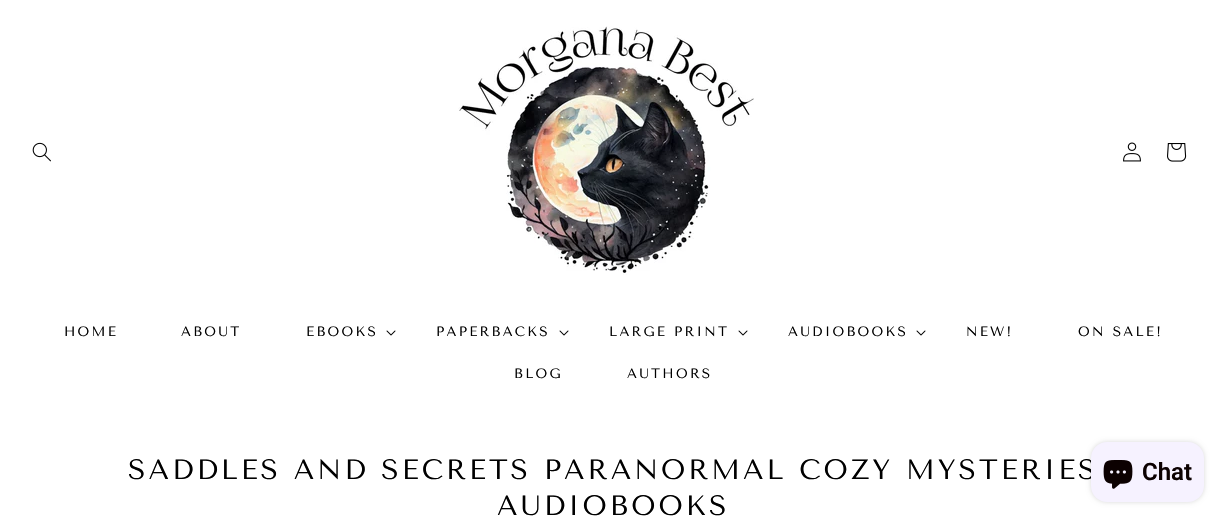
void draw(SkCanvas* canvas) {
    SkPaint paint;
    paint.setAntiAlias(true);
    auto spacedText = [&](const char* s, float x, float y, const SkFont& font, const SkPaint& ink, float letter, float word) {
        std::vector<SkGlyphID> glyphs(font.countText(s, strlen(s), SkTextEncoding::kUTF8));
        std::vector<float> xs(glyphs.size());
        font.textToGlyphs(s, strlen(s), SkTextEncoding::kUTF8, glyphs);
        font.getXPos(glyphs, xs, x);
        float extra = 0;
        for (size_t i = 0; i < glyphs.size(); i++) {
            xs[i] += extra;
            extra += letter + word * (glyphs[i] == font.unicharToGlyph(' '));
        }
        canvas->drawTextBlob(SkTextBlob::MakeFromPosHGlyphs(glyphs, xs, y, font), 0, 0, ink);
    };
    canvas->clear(0xFFFFFFFF);
    canvas->drawImageRect(SkImages::DeferredFromEncodedData(SkData::MakeFromFileName("img1.png")), SkRect::MakeXYWH(32, 142, 19, 20), SkSamplingOptions());
    canvas->drawImageRect(SkImages::DeferredFromEncodedData(SkData::MakeFromFileName("img2.png")), SkRect::MakeXYWH(458, 26, 296, 249), SkSamplingOptions());
    canvas->drawImageRect(SkImages::DeferredFromEncodedData(SkData::MakeFromFileName("img3.png")), SkRect::MakeXYWH(1123, 142, 18, 20), SkSamplingOptions());
    canvas->drawImageRect(SkImages::DeferredFromEncodedData(SkData::MakeFromFileName("img4.png")), SkRect::MakeXYWH(1167, 143, 20, 19), SkSamplingOptions());
    SkFont font1(fontMgr->matchFamilyStyle("Tenor Sans", SkFontStyle::Normal()), 13.5f);
    font1.setSubpixel(true);
    paint.setColor(0xFF000000);
    spacedText("HOME", 64, 336, font1, paint, 2.25f, 0);
    spacedText("ABOUT", 181, 336, font1, paint, 2.25f, 0);
    spacedText("EBOOKS", 306, 336, font1, paint, 2.25f, 0);
    canvas->drawImageRect(SkImages::DeferredFromEncodedData(SkData::MakeFromFileName("img5.png")), SkRect::MakeXYWH(386, 330, 10, 6), SkSamplingOptions());
    spacedText("PAPERBACKS", 436, 336, font1, paint, 2.25f, 0);
    canvas->drawImageRect(SkImages::DeferredFromEncodedData(SkData::MakeFromFileName("img5.png")), SkRect::MakeXYWH(559, 330, 10, 6), SkSamplingOptions());
    spacedText("LARGE PRINT", 609, 336, font1, paint, 2.25f, 0);
    canvas->drawImageRect(SkImages::DeferredFromEncodedData(SkData::MakeFromFileName("img5.png")), SkRect::MakeXYWH(738, 330, 10, 6), SkSamplingOptions());
    spacedText("AUDIOBOOKS", 788, 336, font1, paint, 2.25f, 0);
    canvas->drawImageRect(SkImages::DeferredFromEncodedData(SkData::MakeFromFileName("img5.png")), SkRect::MakeXYWH(916, 330, 10, 6), SkSamplingOptions());
    spacedText("NEW!", 966, 336, font1, paint, 2.25f, 0);
    spacedText("ON SALE!", 1078, 336, font1, paint, 2.25f, 0);
    spacedText("BLOG", 514, 378, font1, paint, 2.25f, 0);
    spacedText("AUTHORS", 627, 378, font1, paint, 2.25f, 0);
    SkFont font2(fontMgr->matchFamilyStyle("Tenor Sans", SkFontStyle::Normal()), 28);
    font2.setSubpixel(true);
    spacedText("SADDLES AND SECRETS PARANORMAL COZY MYSTERIES", 128, 479, font2, paint, 3, 0);
    spacedText("AUDIOBOOKS", 497, 515, font2, paint, 3, 0);
    paint.setColor(0x26000000);
    paint.setMaskFilter(SkMaskFilter::MakeBlur(kNormal_SkBlurStyle, 2.5f));
    canvas->drawRoundRect(SkRect::MakeXYWH(1091, 442, 113, 60), 16, 16, paint);
    paint.setMaskFilter(nullptr);
    paint.setColor(0xFFF6F2FF);
    canvas->drawRoundRect(SkRect::MakeXYWH(1091, 442, 113, 60), 16, 16, paint);
    canvas->drawImageRect(SkImages::DeferredFromEncodedData(SkData::MakeFromFileName("img6.png")), SkRect::MakeXYWH(1103, 460, 30, 29), SkSamplingOptions());
    SkFont font3(fontMgr->matchFamilyStyle("Roboto", SkFontStyle(600, SkFontStyle::kNormal_Width, SkFontStyle::kUpright_Slant)), 24);
    font3.setSubpixel(true);
    paint.setColor(0xFF0C0101);
    canvas->drawString("Chat", 1142, 480, font3, paint);
}
